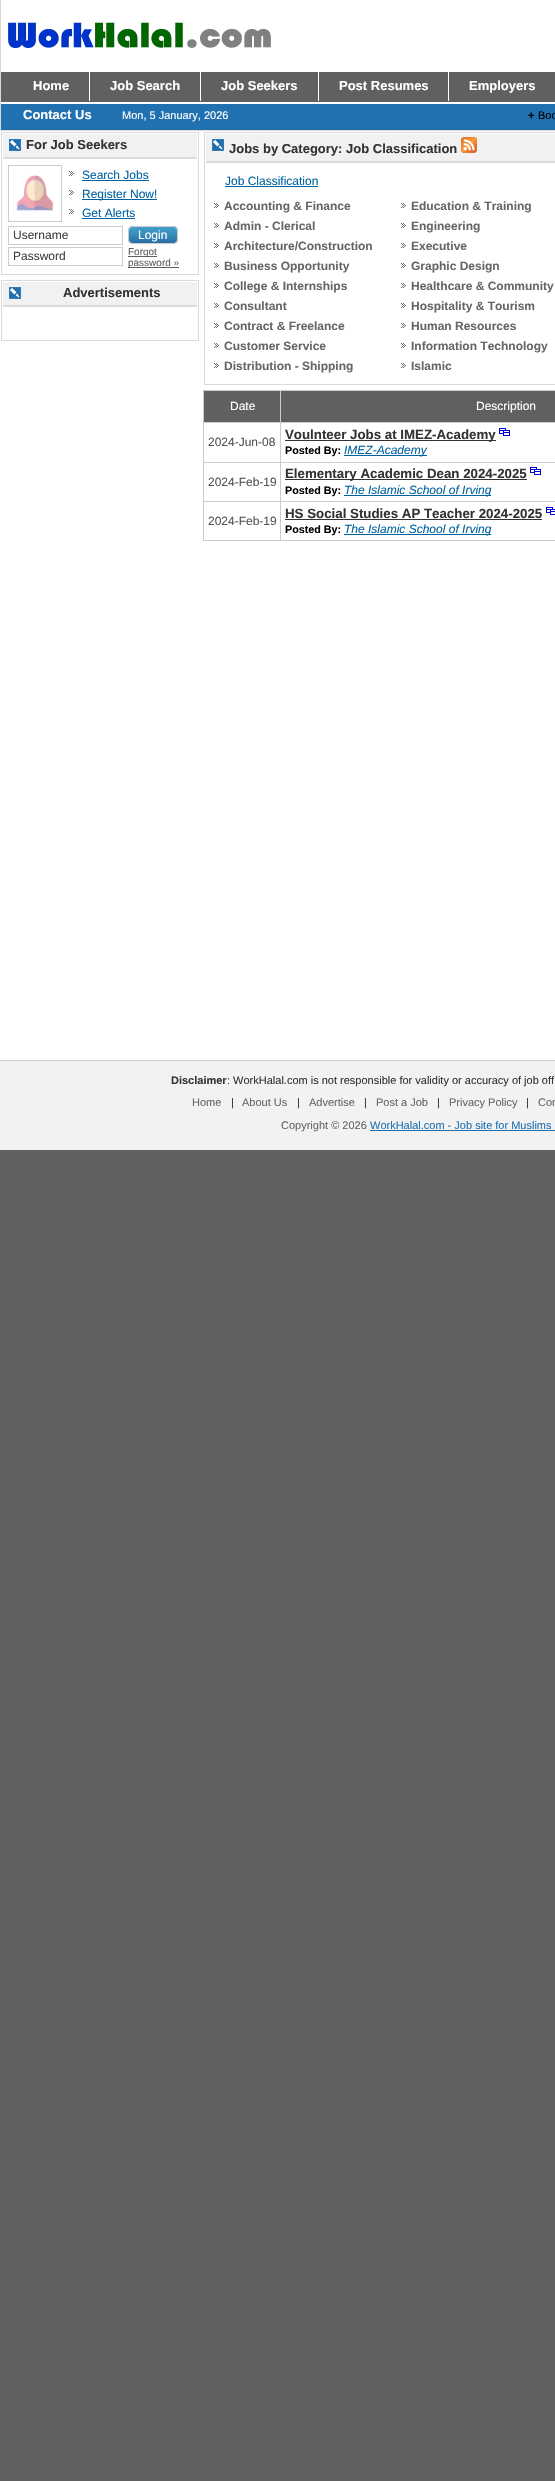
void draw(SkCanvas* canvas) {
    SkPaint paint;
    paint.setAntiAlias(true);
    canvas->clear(0xFF606060);
    paint.setColor(0xFFFFFFFF);
    canvas->drawRect(SkRect::MakeXYWH(0, 0, 555, 1060), paint);
    paint.setColor(0xFFDBD9DC);
    canvas->drawRect(SkRect::MakeXYWH(0, 130, 555, 1), paint);
    canvas->drawRect(SkRect::MakeXYWH(0, 0, 1, 131), paint);
    canvas->drawImageRect(SkImages::DeferredFromEncodedData(SkData::MakeFromFileName("img1.png")), SkRect::MakeXYWH(8, 22, 263, 26), SkSamplingOptions());
    paint.setColor(0xFF606060);
    canvas->drawRect(SkRect::MakeXYWH(1, 72, 554, 30), paint);
    paint.setColor(0xFFFFFFFF);
    canvas->drawRect(SkRect::MakeXYWH(89, 72, 1, 29), paint);
    SkFont font1(fontMgr->matchFamilyStyle("Liberation Sans", SkFontStyle::Bold()), 13);
    font1.setSubpixel(true);
    canvas->drawString("Home", 33, 90, font1, paint);
    canvas->drawRect(SkRect::MakeXYWH(200, 72, 1, 29), paint);
    canvas->drawString("Job Search", 110, 90, font1, paint);
    canvas->drawRect(SkRect::MakeXYWH(318, 72, 1, 29), paint);
    canvas->drawString("Job Seekers", 221, 90, font1, paint);
    canvas->drawRect(SkRect::MakeXYWH(448, 72, 1, 29), paint);
    canvas->drawString("Post Resumes", 339, 90, font1, paint);
    canvas->drawString("Employers", 469, 90, font1, paint);
    paint.setColor(0xFF2171B0);
    canvas->drawRect(SkRect::MakeXYWH(1, 104, 554, 26), paint);
    paint.setColor(0xFFFFFFFF);
    canvas->drawString("Contact Us", 23, 119, font1, paint);
    SkFont font2(fontMgr->matchFamilyStyle("Liberation Sans", SkFontStyle::Normal()), 11);
    font2.setSubpixel(true);
    canvas->drawString("Mon, 5 January, 2026", 122, 119, font2, paint);
    SkFont font3(fontMgr->matchFamilyStyle("Liberation Sans", SkFontStyle::Bold()), 11);
    font3.setSubpixel(true);
    paint.setColor(0xFF000000);
    canvas->drawString("+", 528, 119, font3, paint);
    canvas->drawString("Boo", 538, 119, font2, paint);
    paint.setStyle(SkPaint::kStroke_Style);
    paint.setStrokeWidth(1);
    paint.setColor(0xFFDBD9DC);
    canvas->drawRect(SkRect::MakeXYWH(1.5f, 132.5f, 197, 142), paint);
    paint.setStyle(SkPaint::kFill_Style);
    paint.setColor(0xFFF1F1F1);
    canvas->drawRect(SkRect::MakeXYWH(3, 134, 194, 23), paint);
    canvas->drawImageRect(SkImages::DeferredFromEncodedData(SkData::MakeFromFileName("img2.png")), SkRect::MakeXYWH(9, 139, 12, 12), SkSamplingOptions());
    paint.setColor(0xFFDBD9DC);
    canvas->drawRect(SkRect::MakeXYWH(3, 157, 194, 2), paint);
    paint.setColor(0xFF333333);
    canvas->drawString("For Job Seekers", 26, 149, font1, paint);
    paint.setStyle(SkPaint::kStroke_Style);
    paint.setColor(0xFFCCCCCC);
    canvas->drawRect(SkRect::MakeXYWH(8.5f, 165.5f, 53, 56), paint);
    canvas->drawImageRect(SkImages::DeferredFromEncodedData(SkData::MakeFromFileName("img3.png")), SkRect::MakeXYWH(16, 175, 38, 36), SkSamplingOptions());
    canvas->drawImageRect(SkImages::DeferredFromEncodedData(SkData::MakeFromFileName("img4.png")), SkRect::MakeXYWH(69, 171, 5, 5), SkSamplingOptions());
    SkFont font4(fontMgr->matchFamilyStyle("Liberation Sans", SkFontStyle::Normal()), 12);
    font4.setSubpixel(true);
    paint.setStyle(SkPaint::kFill_Style);
    paint.setColor(0xFF0063A1);
    canvas->drawString("Search Jobs", 82, 179, font4, paint);
    canvas->drawRect(SkRect::MakeXYWH(82, 180, 67, 1), paint);
    canvas->drawImageRect(SkImages::DeferredFromEncodedData(SkData::MakeFromFileName("img4.png")), SkRect::MakeXYWH(69, 190, 5, 5), SkSamplingOptions());
    canvas->drawRect(SkRect::MakeXYWH(82, 199, 75, 1), paint);
    canvas->drawString("Register Now!", 82, 198, font4, paint);
    canvas->drawImageRect(SkImages::DeferredFromEncodedData(SkData::MakeFromFileName("img4.png")), SkRect::MakeXYWH(69, 209, 5, 5), SkSamplingOptions());
    canvas->drawString("Get Alerts", 82, 217, font4, paint);
    canvas->drawRect(SkRect::MakeXYWH(82, 218, 53, 1), paint);
    paint.setStyle(SkPaint::kStroke_Style);
    paint.setColor(0xFFCCCCCC);
    canvas->drawRect(SkRect::MakeXYWH(8.5f, 226.5f, 114, 18), paint);
    paint.setStyle(SkPaint::kFill_Style);
    paint.setColor(0xFF404040);
    canvas->drawString("Username", 13, 239, font4, paint);
    paint.setStyle(SkPaint::kStroke_Style);
    paint.setColor(0xFFCCCCCC);
    canvas->drawRect(SkRect::MakeXYWH(8.5f, 247.5f, 114, 18), paint);
    paint.setStyle(SkPaint::kFill_Style);
    paint.setColor(0xFF404040);
    canvas->drawString("Password", 13, 260, font4, paint);
    canvas->drawImageRect(SkImages::DeferredFromEncodedData(SkData::MakeFromFileName("img5.png")), SkRect::MakeXYWH(128, 226, 50, 18), SkSamplingOptions());
    paint.setStyle(SkPaint::kStroke_Style);
    paint.setColor(0xFFCCCCCC);
    canvas->drawRoundRect(SkRect::MakeXYWH(128.5f, 226.5f, 49, 17), 4.5f, 4.5f, paint);
    paint.setStyle(SkPaint::kFill_Style);
    paint.setColor(0xFFFFFFFF);
    canvas->drawString("Login", 138, 239, font4, paint);
    paint.setColor(0xFF5F5F5F);
    canvas->drawRect(SkRect::MakeXYWH(128, 256, 29, 1), paint);
    SkFont font5(fontMgr->matchFamilyStyle("Liberation Sans", SkFontStyle::Normal()), 10);
    font5.setSubpixel(true);
    canvas->drawString("Forgot", 128, 255, font5, paint);
    canvas->drawRect(SkRect::MakeXYWH(128, 267, 51, 1), paint);
    canvas->drawString("password »", 128, 266, font5, paint);
    paint.setStyle(SkPaint::kStroke_Style);
    paint.setColor(0xFFDBD9DC);
    canvas->drawRect(SkRect::MakeXYWH(1.5f, 280.5f, 197, 60), paint);
    paint.setStyle(SkPaint::kFill_Style);
    paint.setColor(0xFFF1F1F1);
    canvas->drawRect(SkRect::MakeXYWH(3, 282, 194, 23), paint);
    canvas->drawImageRect(SkImages::DeferredFromEncodedData(SkData::MakeFromFileName("img2.png")), SkRect::MakeXYWH(9, 287, 12, 12), SkSamplingOptions());
    paint.setColor(0xFFDBD9DC);
    canvas->drawRect(SkRect::MakeXYWH(3, 305, 194, 2), paint);
    paint.setColor(0xFF333333);
    canvas->drawString("Advertisements", 63, 297, font1, paint);
    paint.setStyle(SkPaint::kStroke_Style);
    paint.setColor(0xFFDBD9DC);
    canvas->drawRect(SkRect::MakeXYWH(204.5f, 132.5f, 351, 252), paint);
    paint.setStyle(SkPaint::kFill_Style);
    paint.setColor(0xFFF1F1F1);
    canvas->drawRect(SkRect::MakeXYWH(206, 134, 349, 27), paint);
    canvas->drawImageRect(SkImages::DeferredFromEncodedData(SkData::MakeFromFileName("img2.png")), SkRect::MakeXYWH(212, 139, 12, 12), SkSamplingOptions());
    paint.setColor(0xFFDBD9DC);
    canvas->drawRect(SkRect::MakeXYWH(206, 161, 349, 2), paint);
    paint.setColor(0xFF333333);
    canvas->drawString("Jobs by Category: Job Classification", 229, 153, font1, paint);
    canvas->drawImageRect(SkImages::DeferredFromEncodedData(SkData::MakeFromFileName("img6.png")), SkRect::MakeXYWH(461, 137, 16, 16), SkSamplingOptions());
    paint.setColor(0xFF0063A1);
    canvas->drawString("Job Classification", 225, 185, font4, paint);
    canvas->drawRect(SkRect::MakeXYWH(225, 186, 93, 1), paint);
    canvas->drawImageRect(SkImages::DeferredFromEncodedData(SkData::MakeFromFileName("img4.png")), SkRect::MakeXYWH(214, 203, 5, 5), SkSamplingOptions());
    SkFont font6(fontMgr->matchFamilyStyle("Liberation Sans", SkFontStyle::Bold()), 12);
    font6.setSubpixel(true);
    paint.setColor(0xFF666666);
    canvas->drawString("Accounting & Finance", 224, 210, font6, paint);
    canvas->drawImageRect(SkImages::DeferredFromEncodedData(SkData::MakeFromFileName("img4.png")), SkRect::MakeXYWH(214, 223, 5, 5), SkSamplingOptions());
    canvas->drawString("Admin - Clerical", 224, 230, font6, paint);
    canvas->drawImageRect(SkImages::DeferredFromEncodedData(SkData::MakeFromFileName("img4.png")), SkRect::MakeXYWH(214, 243, 5, 5), SkSamplingOptions());
    canvas->drawString("Architecture/Construction", 224, 250, font6, paint);
    canvas->drawImageRect(SkImages::DeferredFromEncodedData(SkData::MakeFromFileName("img4.png")), SkRect::MakeXYWH(214, 263, 5, 5), SkSamplingOptions());
    canvas->drawString("Business Opportunity", 224, 270, font6, paint);
    canvas->drawImageRect(SkImages::DeferredFromEncodedData(SkData::MakeFromFileName("img4.png")), SkRect::MakeXYWH(214, 283, 5, 5), SkSamplingOptions());
    canvas->drawString("College & Internships", 224, 290, font6, paint);
    canvas->drawImageRect(SkImages::DeferredFromEncodedData(SkData::MakeFromFileName("img4.png")), SkRect::MakeXYWH(214, 303, 5, 5), SkSamplingOptions());
    canvas->drawString("Consultant", 224, 310, font6, paint);
    canvas->drawImageRect(SkImages::DeferredFromEncodedData(SkData::MakeFromFileName("img4.png")), SkRect::MakeXYWH(214, 323, 5, 5), SkSamplingOptions());
    canvas->drawString("Contract & Freelance", 224, 330, font6, paint);
    canvas->drawImageRect(SkImages::DeferredFromEncodedData(SkData::MakeFromFileName("img4.png")), SkRect::MakeXYWH(214, 343, 5, 5), SkSamplingOptions());
    canvas->drawString("Customer Service", 224, 350, font6, paint);
    canvas->drawImageRect(SkImages::DeferredFromEncodedData(SkData::MakeFromFileName("img4.png")), SkRect::MakeXYWH(214, 363, 5, 5), SkSamplingOptions());
    canvas->drawString("Distribution - Shipping", 224, 370, font6, paint);
    canvas->drawImageRect(SkImages::DeferredFromEncodedData(SkData::MakeFromFileName("img4.png")), SkRect::MakeXYWH(401, 203, 5, 5), SkSamplingOptions());
    canvas->drawString("Education & Training", 411, 210, font6, paint);
    canvas->drawImageRect(SkImages::DeferredFromEncodedData(SkData::MakeFromFileName("img4.png")), SkRect::MakeXYWH(401, 223, 5, 5), SkSamplingOptions());
    canvas->drawString("Engineering", 411, 230, font6, paint);
    canvas->drawImageRect(SkImages::DeferredFromEncodedData(SkData::MakeFromFileName("img4.png")), SkRect::MakeXYWH(401, 243, 5, 5), SkSamplingOptions());
    canvas->drawString("Executive", 411, 250, font6, paint);
    canvas->drawImageRect(SkImages::DeferredFromEncodedData(SkData::MakeFromFileName("img4.png")), SkRect::MakeXYWH(401, 263, 5, 5), SkSamplingOptions());
    canvas->drawString("Graphic Design", 411, 270, font6, paint);
    canvas->drawImageRect(SkImages::DeferredFromEncodedData(SkData::MakeFromFileName("img4.png")), SkRect::MakeXYWH(401, 283, 5, 5), SkSamplingOptions());
    canvas->drawString("Healthcare & Community", 411, 290, font6, paint);
    canvas->drawImageRect(SkImages::DeferredFromEncodedData(SkData::MakeFromFileName("img4.png")), SkRect::MakeXYWH(401, 303, 5, 5), SkSamplingOptions());
    canvas->drawString("Hospitality & Tourism", 411, 310, font6, paint);
    canvas->drawImageRect(SkImages::DeferredFromEncodedData(SkData::MakeFromFileName("img4.png")), SkRect::MakeXYWH(401, 323, 5, 5), SkSamplingOptions());
    canvas->drawString("Human Resources", 411, 330, font6, paint);
    canvas->drawImageRect(SkImages::DeferredFromEncodedData(SkData::MakeFromFileName("img4.png")), SkRect::MakeXYWH(401, 343, 5, 5), SkSamplingOptions());
    canvas->drawString("Information Technology", 411, 350, font6, paint);
    canvas->drawImageRect(SkImages::DeferredFromEncodedData(SkData::MakeFromFileName("img4.png")), SkRect::MakeXYWH(401, 363, 5, 5), SkSamplingOptions());
    canvas->drawString("Islamic", 411, 370, font6, paint);
    paint.setColor(0xFF606060);
    canvas->drawRect(SkRect::MakeXYWH(204, 391, 76, 31), paint);
    paint.setColor(0xFFCCCCCC);
    canvas->drawRect(SkRect::MakeXYWH(280, 390, 275, 1), paint);
    canvas->drawRect(SkRect::MakeXYWH(280, 422, 275, 1), paint);
    canvas->drawRect(SkRect::MakeXYWH(280, 462, 275, 1), paint);
    canvas->drawRect(SkRect::MakeXYWH(280, 501, 275, 1), paint);
    canvas->drawRect(SkRect::MakeXYWH(280, 540, 275, 1), paint);
    canvas->drawRect(SkRect::MakeXYWH(280, 501, 1, 40), paint);
    canvas->drawRect(SkRect::MakeXYWH(203, 501, 78, 1), paint);
    canvas->drawRect(SkRect::MakeXYWH(280, 462, 1, 40), paint);
    canvas->drawRect(SkRect::MakeXYWH(203, 462, 78, 1), paint);
    canvas->drawRect(SkRect::MakeXYWH(280, 422, 1, 41), paint);
    canvas->drawRect(SkRect::MakeXYWH(203, 422, 78, 1), paint);
    canvas->drawRect(SkRect::MakeXYWH(280, 390, 1, 33), paint);
    canvas->drawRect(SkRect::MakeXYWH(203, 390, 78, 1), paint);
    canvas->drawRect(SkRect::MakeXYWH(203, 540, 78, 1), paint);
    canvas->drawRect(SkRect::MakeXYWH(203, 501, 1, 40), paint);
    canvas->drawRect(SkRect::MakeXYWH(203, 462, 1, 40), paint);
    canvas->drawRect(SkRect::MakeXYWH(203, 422, 1, 41), paint);
    canvas->drawRect(SkRect::MakeXYWH(203, 390, 1, 33), paint);
    paint.setColor(0xFFFFFFFF);
    canvas->drawString("Date", 230, 410, font4, paint);
    paint.setColor(0xFF606060);
    canvas->drawRect(SkRect::MakeXYWH(281, 391, 274, 31), paint);
    paint.setColor(0xFFFFFFFF);
    canvas->drawString("Description", 476, 410, font4, paint);
    paint.setColor(0xFF555555);
    canvas->drawString("2024-Jun-08", 208, 446, font4, paint);
    paint.setColor(0xFF333333);
    canvas->drawRect(SkRect::MakeXYWH(285, 440, 211, 1), paint);
    SkFont font7(fontMgr->matchFamilyStyle("Liberation Sans", SkFontStyle::Bold()), 13.3f);
    font7.setSubpixel(true);
    canvas->drawString("Voulnteer Jobs at IMEZ-Academy", 285, 439, font7, paint);
    canvas->drawImageRect(SkImages::DeferredFromEncodedData(SkData::MakeFromFileName("img7.png")), SkRect::MakeXYWH(499, 428, 11, 8), SkSamplingOptions());
    SkFont font8(fontMgr->matchFamilyStyle("Liberation Sans", SkFontStyle::Bold()), 10.75f);
    font8.setSubpixel(true);
    paint.setColor(0xFF000000);
    canvas->drawString("Posted By:", 285, 454, font8, paint);
    paint.setColor(0xFF0063A1);
    canvas->drawRect(SkRect::MakeXYWH(344, 455, 83, 1), paint);
    SkFont font9(fontMgr->matchFamilyStyle("Liberation Sans", SkFontStyle::Italic()), 12);
    font9.setSubpixel(true);
    canvas->drawString("IMEZ-Academy", 344, 454, font9, paint);
    paint.setColor(0xFF555555);
    canvas->drawString("2024-Feb-19", 208, 486, font4, paint);
    paint.setColor(0xFF333333);
    canvas->drawRect(SkRect::MakeXYWH(285, 479, 242, 1), paint);
    canvas->drawString("Elementary Academic Dean 2024-2025", 285, 478, font7, paint);
    canvas->drawImageRect(SkImages::DeferredFromEncodedData(SkData::MakeFromFileName("img7.png")), SkRect::MakeXYWH(530, 467, 11, 8), SkSamplingOptions());
    paint.setColor(0xFF000000);
    canvas->drawString("Posted By:", 285, 494, font8, paint);
    paint.setColor(0xFF0063A1);
    canvas->drawRect(SkRect::MakeXYWH(344, 495, 147, 1), paint);
    canvas->drawString("The Islamic School of Irving", 344, 494, font9, paint);
    paint.setColor(0xFF555555);
    canvas->drawString("2024-Feb-19", 208, 525, font4, paint);
    paint.setColor(0xFF333333);
    canvas->drawString("HS Social Studies AP Teacher 2024-2025", 285, 518, font7, paint);
    canvas->drawRect(SkRect::MakeXYWH(285, 519, 257, 1), paint);
    canvas->drawImageRect(SkImages::DeferredFromEncodedData(SkData::MakeFromFileName("img8.png")), SkRect::MakeXYWH(546, 507, 9, 8), SkSamplingOptions());
    paint.setColor(0xFF000000);
    canvas->drawString("Posted By:", 285, 533, font8, paint);
    paint.setColor(0xFF0063A1);
    canvas->drawRect(SkRect::MakeXYWH(344, 534, 147, 1), paint);
    canvas->drawString("The Islamic School of Irving", 344, 533, font9, paint);
    paint.setColor(0xFFF2F2F2);
    canvas->drawRect(SkRect::MakeXYWH(0, 1061, 555, 89), paint);
    paint.setColor(0xFFCCCCCC);
    canvas->drawRect(SkRect::MakeXYWH(0, 1060, 555, 1), paint);
    paint.setColor(0xFF333333);
    canvas->drawString("Disclaimer", 171, 1084, font3, paint);
    canvas->drawString(": WorkHalal.com is not responsible for validity or accuracy of job off", 227, 1084, font2, paint);
    paint.setColor(0xFF666666);
    canvas->drawString("Home", 192, 1106, font2, paint);
    paint.setColor(0xFF333333);
    canvas->drawString("|", 231, 1106, font2, paint);
    paint.setColor(0xFF666666);
    canvas->drawString("About Us", 242, 1106, font2, paint);
    paint.setColor(0xFF333333);
    canvas->drawString("|", 297, 1106, font2, paint);
    paint.setColor(0xFF666666);
    canvas->drawString("Advertise", 309, 1106, font2, paint);
    paint.setColor(0xFF333333);
    canvas->drawString("|", 364, 1106, font2, paint);
    paint.setColor(0xFF666666);
    canvas->drawString("Post a Job", 376, 1106, font2, paint);
    paint.setColor(0xFF333333);
    canvas->drawString("|", 437, 1106, font2, paint);
    paint.setColor(0xFF666666);
    canvas->drawString("Privacy Policy", 449, 1106, font2, paint);
    paint.setColor(0xFF333333);
    canvas->drawString("|", 526, 1106, font2, paint);
    paint.setColor(0xFF666666);
    canvas->drawString("Con", 538, 1106, font2, paint);
    canvas->drawString("Copyright © 2026", 281, 1129, font2, paint);
    paint.setColor(0xFF2171B0);
    canvas->drawString("WorkHalal.com - Job site for Muslims", 370, 1129, font2, paint);
    canvas->drawRect(SkRect::MakeXYWH(370, 1130, 185, 1), paint);
}
